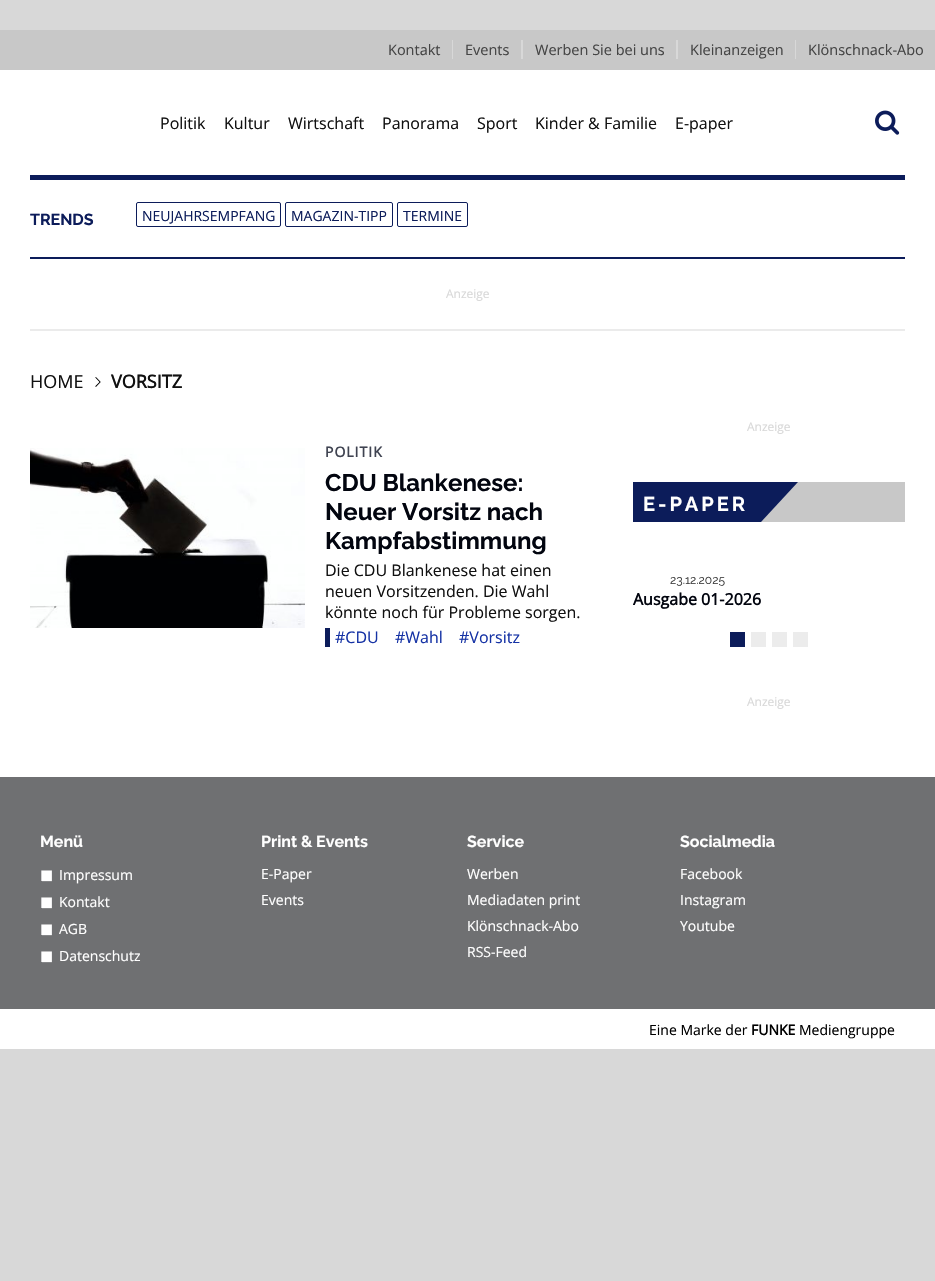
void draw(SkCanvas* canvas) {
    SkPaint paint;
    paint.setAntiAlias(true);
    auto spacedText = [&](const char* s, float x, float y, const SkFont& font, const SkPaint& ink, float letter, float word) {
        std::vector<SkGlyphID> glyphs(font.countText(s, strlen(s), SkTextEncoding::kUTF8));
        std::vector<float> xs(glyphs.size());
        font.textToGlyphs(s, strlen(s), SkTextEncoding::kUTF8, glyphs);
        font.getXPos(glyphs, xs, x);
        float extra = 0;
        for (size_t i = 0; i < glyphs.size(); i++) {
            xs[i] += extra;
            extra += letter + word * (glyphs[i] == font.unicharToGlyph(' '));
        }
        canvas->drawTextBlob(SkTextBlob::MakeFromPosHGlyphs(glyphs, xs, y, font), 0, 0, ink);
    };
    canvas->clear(0xFFD8D8D8);
    paint.setColor(0xFFFFFFFF);
    canvas->drawRect(SkRect::MakeXYWH(0, 70, 935, 707), paint);
    paint.setColor(0xFFC8C8C8);
    canvas->drawRect(SkRect::MakeXYWH(0, 30, 935, 40), paint);
    SkFont font1(fontMgr->matchFamilyStyle("Open Sans", SkFontStyle::Normal()), 14.5f);
    font1.setSubpixel(true);
    paint.setColor(0xFF454545);
    canvas->drawString("Kontakt", 388, 55, font1, paint);
    canvas->drawString("Events", 465, 55, font1, paint);
    paint.setColor(0xFFD8D8D8);
    canvas->drawRect(SkRect::MakeXYWH(521, 40, 2, 19), paint);
    canvas->drawRect(SkRect::MakeXYWH(452, 40, 1, 19), paint);
    paint.setColor(0xFF454545);
    canvas->drawString("Werben Sie bei uns", 535, 55, font1, paint);
    paint.setColor(0xFFD8D8D8);
    canvas->drawRect(SkRect::MakeXYWH(676, 40, 2, 19), paint);
    paint.setColor(0xFF454545);
    canvas->drawString("Kleinanzeigen", 690, 55, font1, paint);
    paint.setColor(0xFFD8D8D8);
    canvas->drawRect(SkRect::MakeXYWH(795, 40, 1, 19), paint);
    paint.setColor(0xFF454545);
    canvas->drawString("Klönschnack-Abo", 808, 55, font1, paint);
    paint.setColor(0xFF0C1C5A);
    canvas->drawRect(SkRect::MakeXYWH(30, 175, 875, 5), paint);
    SkFont font2(fontMgr->matchFamilyStyle("Open Sans", SkFontStyle::Normal()), 16);
    font2.setSubpixel(true);
    paint.setColor(0xFF111111);
    canvas->drawString("Politik", 160, 129, font2, paint);
    canvas->drawString("Kultur", 224, 129, font2, paint);
    canvas->drawString("Wirtschaft", 288, 129, font2, paint);
    canvas->drawString("Panorama", 382, 129, font2, paint);
    canvas->drawString("Sport", 477, 129, font2, paint);
    canvas->drawString("Kinder & Familie", 535, 129, font2, paint);
    canvas->drawString("E-paper", 675, 129, font2, paint);
    canvas->drawImageRect(SkImages::DeferredFromEncodedData(SkData::MakeFromFileName("img1.png")), SkRect::MakeXYWH(875, 110, 25, 25), SkSamplingOptions());
    paint.setColor(0xFF0C1C5A);
    canvas->drawRect(SkRect::MakeXYWH(30, 257, 875, 2), paint);
    SkFont font3(fontMgr->matchFamilyStyle("Raleway", SkFontStyle::Bold()), 16);
    font3.setSubpixel(true);
    canvas->drawString("TRENDS", 30, 225, font3, paint);
    paint.setStyle(SkPaint::kStroke_Style);
    paint.setStrokeWidth(1);
    canvas->drawRoundRect(SkRect::MakeXYWH(136.5f, 202.5f, 144, 24), 1.5f, 1.5f, paint);
    SkFont font4(fontMgr->matchFamilyStyle("Open Sans", SkFontStyle::Normal()), 14);
    font4.setSubpixel(true);
    paint.setStyle(SkPaint::kFill_Style);
    canvas->drawString("NEUJAHRSEMPFANG", 142, 221, font4, paint);
    paint.setStyle(SkPaint::kStroke_Style);
    canvas->drawRoundRect(SkRect::MakeXYWH(285.5f, 202.5f, 107, 24), 1.5f, 1.5f, paint);
    paint.setStyle(SkPaint::kFill_Style);
    canvas->drawString("MAGAZIN-TIPP", 291, 221, font4, paint);
    paint.setStyle(SkPaint::kStroke_Style);
    canvas->drawRoundRect(SkRect::MakeXYWH(397.5f, 202.5f, 70, 24), 1.5f, 1.5f, paint);
    paint.setStyle(SkPaint::kFill_Style);
    canvas->drawString("TERMINE", 403, 221, font4, paint);
    paint.setColor(0xFFEBEBEB);
    canvas->drawRect(SkRect::MakeXYWH(30, 329, 875, 2), paint);
    SkFont font5(fontMgr->matchFamilyStyle("Open Sans", SkFontStyle::Normal()), 12);
    font5.setSubpixel(true);
    paint.setColor(0xFFD8D8D8);
    canvas->drawString("Anzeige", 446, 298, font5, paint);
    SkFont font6(fontMgr->matchFamilyStyle("Open Sans", SkFontStyle::Normal()), 18);
    font6.setSubpixel(true);
    paint.setColor(0xFF111111);
    canvas->drawString("HOME", 30, 388, font6, paint);
    canvas->drawImageRect(SkImages::DeferredFromEncodedData(SkData::MakeFromFileName("img2.png")), SkRect::MakeXYWH(95, 377, 6, 10), SkSamplingOptions());
    SkFont font7(fontMgr->matchFamilyStyle("Open Sans", SkFontStyle::Bold()), 18);
    font7.setSubpixel(true);
    canvas->drawString("VORSITZ", 111, 388, font7, paint);
    canvas->drawImageRect(SkImages::DeferredFromEncodedData(SkData::MakeFromFileName("img3.png")), SkRect::MakeXYWH(30, 448, 275, 180), SkSamplingOptions());
    SkFont font8(fontMgr->matchFamilyStyle("Open Sans", SkFontStyle::Bold()), 14);
    font8.setSubpixel(true);
    paint.setColor(0xFF3F4351);
    spacedText("POLITIK", 325, 457, font8, paint, 1, 0);
    SkFont font9(fontMgr->matchFamilyStyle("Raleway", SkFontStyle::Bold()), 24);
    font9.setSubpixel(true);
    paint.setColor(0xFF02050F);
    canvas->drawString("CDU Blankenese:", 325, 491, font9, paint);
    canvas->drawString("Neuer Vorsitz nach", 325, 520, font9, paint);
    canvas->drawString("Kampfabstimmung", 325, 549, font9, paint);
    paint.setColor(0xFF111111);
    canvas->drawString("Die CDU Blankenese hat einen", 325, 576, font2, paint);
    canvas->drawString("neuen Vorsitzenden. Die Wahl", 325, 597, font2, paint);
    canvas->drawString("könnte noch für Probleme sorgen.", 325, 618, font2, paint);
    paint.setColor(0xFF0C1C5A);
    canvas->drawRect(SkRect::MakeXYWH(325, 628, 5, 19), paint);
    paint.setColor(0xFF1633A5);
    canvas->drawString("#CDU", 335, 643, font2, paint);
    canvas->drawString("#Wahl", 395, 643, font2, paint);
    canvas->drawString("#Vorsitz", 459, 643, font2, paint);
    paint.setColor(0xFFD8D8D8);
    canvas->drawString("Anzeige", 747, 431, font5, paint);
    paint.setColor(0xFFC8C8C8);
    canvas->drawRect(SkRect::MakeXYWH(761, 482, 144, 40), paint);
    paint.setColor(0xFF0C1C5A);
    canvas->drawPath(SkPathBuilder().moveTo(761, 522).lineTo(633, 522).lineTo(633, 482).lineTo(798, 482).close().detach(), paint);
    SkFont font10(fontMgr->matchFamilyStyle("Raleway", SkFontStyle::Bold()), 20);
    font10.setSubpixel(true);
    paint.setColor(0xFFFFFFFF);
    spacedText("E-PAPER", 643, 511, font10, paint, 3, 0);
    SkFont font11(fontMgr->matchFamilyStyle("Raleway", SkFontStyle::Normal()), 12);
    font11.setSubpixel(true);
    paint.setColor(0xFF3D3D3D);
    canvas->drawString("23.12.2025", 670, 584, font11, paint);
    SkFont font12(fontMgr->matchFamilyStyle("Open Sans", SkFontStyle::Bold()), 16);
    font12.setSubpixel(true);
    paint.setColor(0xFF02050F);
    canvas->drawString("Ausgabe 01-2026", 633, 605, font12, paint);
    paint.setColor(0xFF0C1C5A);
    canvas->drawRect(SkRect::MakeXYWH(730, 632, 15, 15), paint);
    paint.setColor(0xFFECECEC);
    canvas->drawRect(SkRect::MakeXYWH(751, 632, 15, 15), paint);
    canvas->drawRect(SkRect::MakeXYWH(772, 632, 15, 15), paint);
    canvas->drawRect(SkRect::MakeXYWH(793, 632, 15, 15), paint);
    paint.setColor(0xFFD8D8D8);
    canvas->drawString("Anzeige", 747, 706, font5, paint);
    paint.setColor(0xFF6F7072);
    canvas->drawRect(SkRect::MakeXYWH(0, 777, 935, 232), paint);
    paint.setColor(0xFFFFFFFF);
    canvas->drawString("Menü", 40, 847, font3, paint);
    SkFont font13(fontMgr->matchFamilyStyle("DejaVu Sans", SkFontStyle::Normal()), 16);
    font13.setSubpixel(true);
    canvas->drawString("◼", 40, 880, font13, paint);
    canvas->drawString("Impressum", 59, 880, font4, paint);
    canvas->drawString("◼", 40, 907, font13, paint);
    canvas->drawString("Kontakt", 59, 907, font4, paint);
    canvas->drawString("◼", 40, 934, font13, paint);
    canvas->drawString("AGB", 59, 934, font4, paint);
    canvas->drawString("◼", 40, 961, font13, paint);
    canvas->drawString("Datenschutz", 59, 961, font4, paint);
    canvas->drawString("Print & Events", 261, 847, font3, paint);
    canvas->drawString("E-Paper", 261, 879, font4, paint);
    canvas->drawString("Events", 261, 905, font4, paint);
    canvas->drawString("Service", 467, 847, font3, paint);
    canvas->drawString("Werben", 467, 879, font4, paint);
    canvas->drawString("Mediadaten print", 467, 905, font4, paint);
    canvas->drawString("Klönschnack-Abo", 467, 931, font4, paint);
    canvas->drawString("RSS-Feed", 467, 957, font4, paint);
    canvas->drawString("Socialmedia", 680, 847, font3, paint);
    canvas->drawString("Facebook", 680, 879, font4, paint);
    canvas->drawString("Instagram", 680, 905, font4, paint);
    canvas->drawString("Youtube", 680, 931, font4, paint);
    canvas->drawRect(SkRect::MakeXYWH(0, 1009, 935, 40), paint);
    paint.setColor(0xFF000000);
    canvas->drawString("Eine Marke der", 649, 1035, font4, paint);
    canvas->drawString("FUNKE", 751, 1035, font8, paint);
    canvas->drawString("Mediengruppe", 799, 1035, font4, paint);
}
